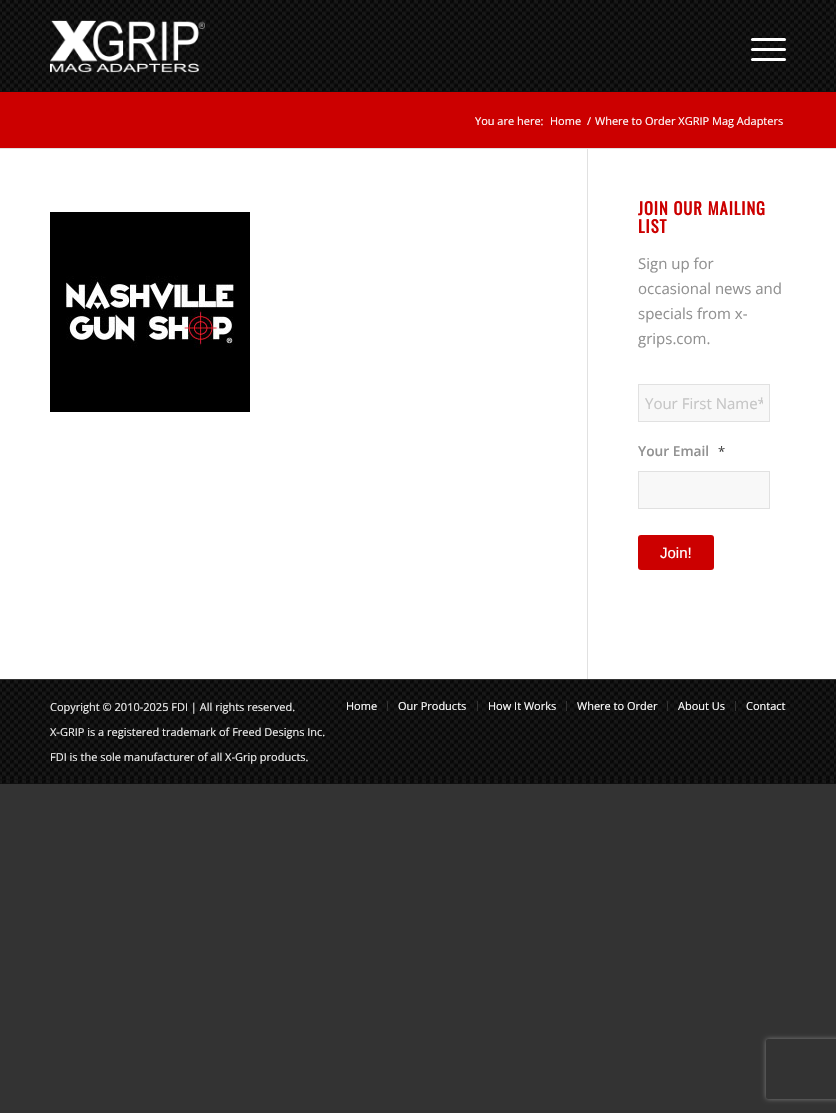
void draw(SkCanvas* canvas) {
    SkPaint paint;
    paint.setAntiAlias(true);
    auto spacedText = [&](const char* s, float x, float y, const SkFont& font, const SkPaint& ink, float letter, float word) {
        std::vector<SkGlyphID> glyphs(font.countText(s, strlen(s), SkTextEncoding::kUTF8));
        std::vector<float> xs(glyphs.size());
        font.textToGlyphs(s, strlen(s), SkTextEncoding::kUTF8, glyphs);
        font.getXPos(glyphs, xs, x);
        float extra = 0;
        for (size_t i = 0; i < glyphs.size(); i++) {
            xs[i] += extra;
            extra += letter + word * (glyphs[i] == font.unicharToGlyph(' '));
        }
        canvas->drawTextBlob(SkTextBlob::MakeFromPosHGlyphs(glyphs, xs, y, font), 0, 0, ink);
    };
    canvas->clear(0xFF333333);
    canvas->drawImageRect(SkImages::DeferredFromEncodedData(SkData::MakeFromFileName("img1.png")), SkRect::MakeXYWH(0, 0, 836, 92), SkSamplingOptions());
    canvas->drawImageRect(SkImages::DeferredFromEncodedData(SkData::MakeFromFileName("img2.png")), SkRect::MakeXYWH(50, 20, 155, 53), SkSamplingOptions());
    paint.setColor(0xFFFFFFFF);
    canvas->drawRoundRect(SkRect::MakeXYWH(751, 48, 35, 3), 1.5f, 1.5f, paint);
    canvas->drawRoundRect(SkRect::MakeXYWH(751, 38, 35, 3), 1.5f, 1.5f, paint);
    canvas->drawRoundRect(SkRect::MakeXYWH(751, 58, 35, 3), 1.5f, 1.5f, paint);
    paint.setColor(0xFFCC0000);
    canvas->drawRect(SkRect::MakeXYWH(0, 92, 836, 56), paint);
    SkFont font1(fontMgr->matchFamilyStyle("Open Sans", SkFontStyle::Normal()), 11);
    font1.setSubpixel(true);
    paint.setColor(0xFFFFFFFF);
    canvas->drawString("You are here:", 475, 125, font1, paint);
    canvas->drawString("Home", 550, 125, font1, paint);
    canvas->drawString("/", 587, 125, font1, paint);
    canvas->drawString("Where to Order XGRIP Mag Adapters", 595, 125, font1, paint);
    canvas->drawRect(SkRect::MakeXYWH(0, 149, 836, 530), paint);
    paint.setColor(0xFFE1E1E1);
    canvas->drawRect(SkRect::MakeXYWH(0, 148, 836, 1), paint);
    canvas->drawImageRect(SkImages::DeferredFromEncodedData(SkData::MakeFromFileName("img3.png")), SkRect::MakeXYWH(50, 212, 200, 200), SkSamplingOptions());
    canvas->drawRect(SkRect::MakeXYWH(587, 149, 1, 531), paint);
    SkFont font2(fontMgr->matchFamilyStyle("Oswald", SkFontStyle::Bold()), 16.5f);
    font2.setSubpixel(true);
    paint.setColor(0xFFCC0000);
    spacedText("JOIN OUR MAILING", 638, 215, font2, paint, 1, 0);
    spacedText("LIST", 638, 233, font2, paint, 1, 0);
    SkFont font3(fontMgr->matchFamilyStyle("Open Sans", SkFontStyle::Normal()), 15);
    font3.setSubpixel(true);
    paint.setColor(0xFF919191);
    canvas->drawString("Sign up for", 638, 269, font3, paint);
    canvas->drawString("occasional news and", 638, 294, font3, paint);
    canvas->drawString("specials from x-", 638, 319, font3, paint);
    canvas->drawString("grips.com.", 638, 344, font3, paint);
    paint.setColor(0xFFF8F8F8);
    canvas->drawRect(SkRect::MakeXYWH(638.5f, 384.5f, 131, 37), paint);
    paint.setStyle(SkPaint::kStroke_Style);
    paint.setStrokeWidth(1);
    paint.setColor(0xFFE1E1E1);
    canvas->drawRect(SkRect::MakeXYWH(638.5f, 384.5f, 131, 37), paint);
    canvas->save();
    canvas->clipRect(SkRect::MakeXYWH(645, 393, 118, 20));
    paint.setStyle(SkPaint::kFill_Style);
    paint.setColor(0xFFC5C5C5);
    canvas->drawString("Your First Name*", 645, 409, font3, paint);
    canvas->restore();
    SkFont font4(fontMgr->matchFamilyStyle("Open Sans", SkFontStyle(600, SkFontStyle::kNormal_Width, SkFontStyle::kUpright_Slant)), 13.75f);
    font4.setSubpixel(true);
    paint.setColor(0xFF919191);
    canvas->drawString("Your Email", 638, 456, font4, paint);
    SkFont font5(fontMgr->matchFamilyStyle("Open Sans", SkFontStyle::Normal()), 13);
    font5.setSubpixel(true);
    paint.setColor(0xFF444444);
    canvas->drawString("*", 718, 456, font5, paint);
    paint.setColor(0xFFF8F8F8);
    canvas->drawRect(SkRect::MakeXYWH(638.5f, 471.5f, 131, 37), paint);
    paint.setStyle(SkPaint::kStroke_Style);
    paint.setColor(0xFFE1E1E1);
    canvas->drawRect(SkRect::MakeXYWH(638.5f, 471.5f, 131, 37), paint);
    paint.setStyle(SkPaint::kFill_Style);
    paint.setColor(0xFFCC0000);
    canvas->drawRoundRect(SkRect::MakeXYWH(638, 535, 76, 35), 3, 3, paint);
    SkFont font6(fontMgr->matchFamilyStyle("Liberation Sans", SkFontStyle::Normal()), 15);
    font6.setSubpixel(true);
    paint.setColor(0xFFFFFFFF);
    canvas->drawString("Join!", 660, 558, font6, paint);
    canvas->drawImageRect(SkImages::DeferredFromEncodedData(SkData::MakeFromFileName("img4.png")), SkRect::MakeXYWH(0, 680, 836, 104), SkSamplingOptions());
    paint.setColor(0xFF333333);
    canvas->drawRect(SkRect::MakeXYWH(587, 679, 1, 1), paint);
    paint.setColor(0xFFEEEEEE);
    canvas->drawString("Copyright © 2010-2025 FDI | All rights reserved.", 50, 711, font1, paint);
    canvas->drawString("X-GRIP is a registered trademark of Freed Designs Inc.", 50, 736, font1, paint);
    canvas->drawString("FDI is the sole manufacturer of all X-Grip products.", 50, 761, font1, paint);
    paint.setColor(0xFFFFFFFF);
    canvas->drawString("Home", 346, 710, font1, paint);
    paint.setColor(0xFF333333);
    canvas->drawRect(SkRect::MakeXYWH(387, 701, 1, 10), paint);
    paint.setColor(0xFFFFFFFF);
    canvas->drawString("Our Products", 398, 710, font1, paint);
    paint.setColor(0xFF333333);
    canvas->drawRect(SkRect::MakeXYWH(477, 701, 1, 10), paint);
    paint.setColor(0xFFFFFFFF);
    canvas->drawString("How It Works", 488, 710, font1, paint);
    paint.setColor(0xFF333333);
    canvas->drawRect(SkRect::MakeXYWH(566, 701, 1, 10), paint);
    paint.setColor(0xFFFFFFFF);
    canvas->drawString("Where to Order", 577, 710, font1, paint);
    paint.setColor(0xFF333333);
    canvas->drawRect(SkRect::MakeXYWH(667, 701, 1, 10), paint);
    paint.setColor(0xFFFFFFFF);
    canvas->drawString("About Us", 678, 710, font1, paint);
    paint.setColor(0xFF333333);
    canvas->drawRect(SkRect::MakeXYWH(735, 701, 1, 10), paint);
    paint.setColor(0xFFFFFFFF);
    canvas->drawString("Contact", 746, 710, font1, paint);
    canvas->save();
    canvas->clipPath(SkPathBuilder(SkPathFillType::kEvenOdd).moveTo(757, 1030).lineTo(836, 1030).lineTo(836, 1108).lineTo(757, 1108).close().moveTo(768, 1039).lineTo(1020, 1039).cubicTo(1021, 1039, 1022, 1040, 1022, 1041).lineTo(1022, 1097).cubicTo(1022, 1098, 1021, 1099, 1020, 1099).lineTo(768, 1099).cubicTo(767, 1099, 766, 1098, 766, 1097).lineTo(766, 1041).cubicTo(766, 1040, 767, 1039, 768, 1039).close().detach(), true);
    paint.setColor(0xFF808080);
    paint.setMaskFilter(SkMaskFilter::MakeBlur(kNormal_SkBlurStyle, 2.5f));
    canvas->drawRoundRect(SkRect::MakeXYWH(766, 1039, 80, 60), 2, 2, paint);
    paint.setMaskFilter(nullptr);
    canvas->restore();
}
